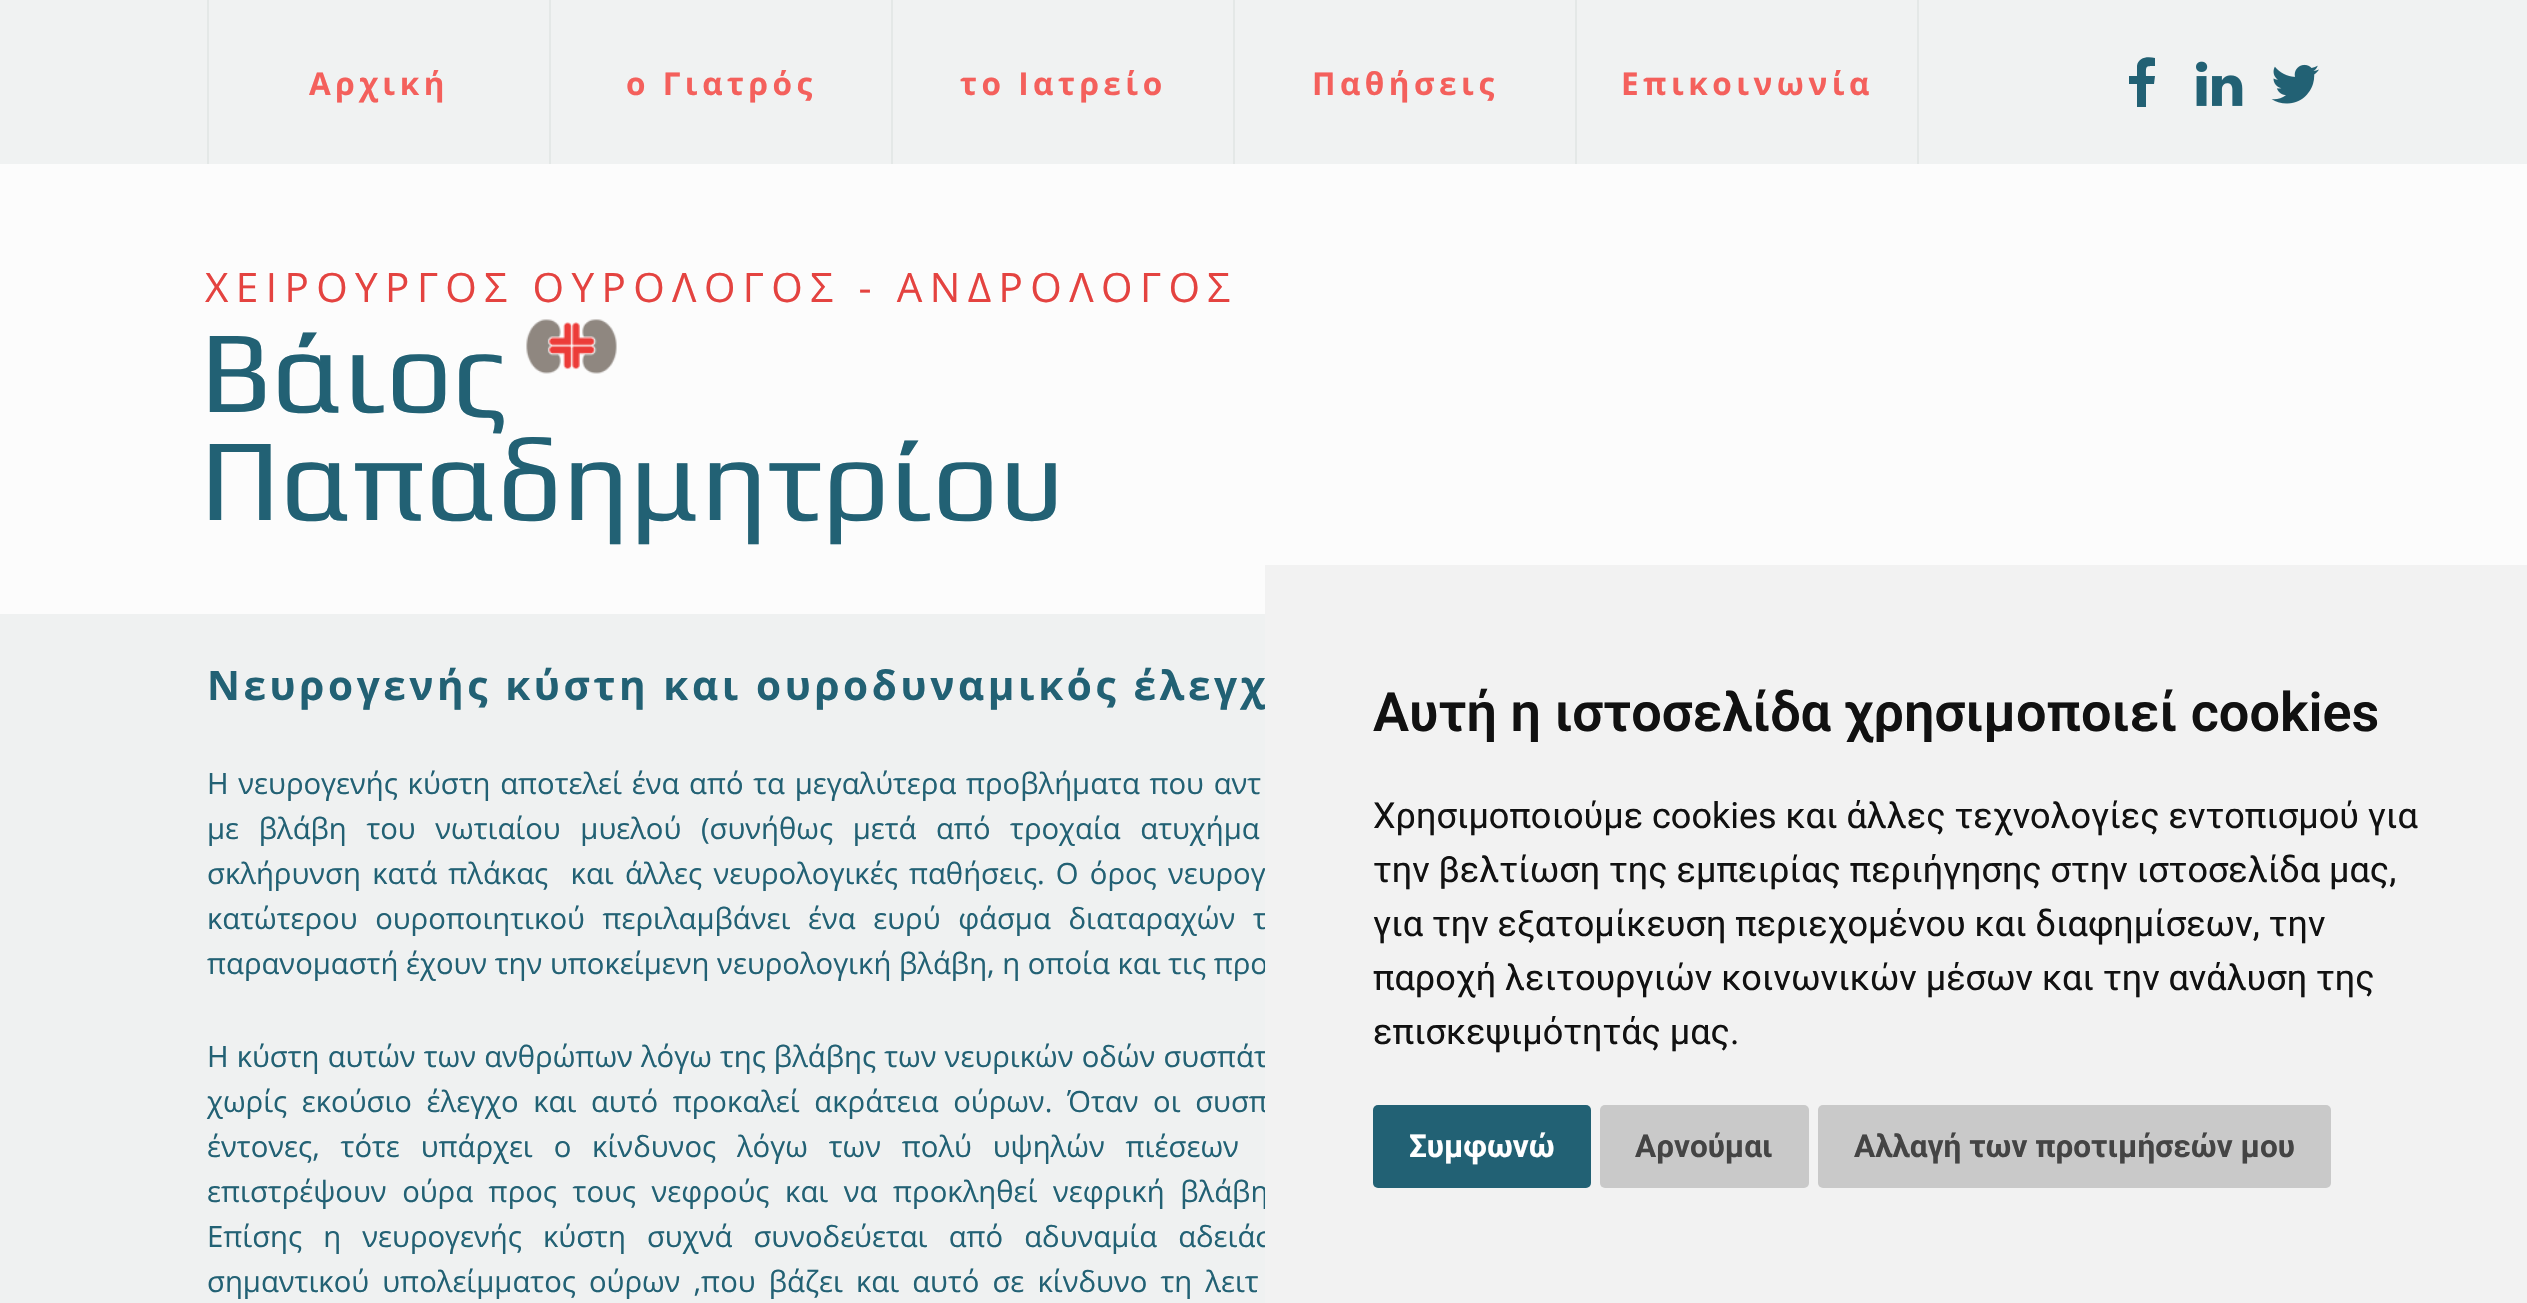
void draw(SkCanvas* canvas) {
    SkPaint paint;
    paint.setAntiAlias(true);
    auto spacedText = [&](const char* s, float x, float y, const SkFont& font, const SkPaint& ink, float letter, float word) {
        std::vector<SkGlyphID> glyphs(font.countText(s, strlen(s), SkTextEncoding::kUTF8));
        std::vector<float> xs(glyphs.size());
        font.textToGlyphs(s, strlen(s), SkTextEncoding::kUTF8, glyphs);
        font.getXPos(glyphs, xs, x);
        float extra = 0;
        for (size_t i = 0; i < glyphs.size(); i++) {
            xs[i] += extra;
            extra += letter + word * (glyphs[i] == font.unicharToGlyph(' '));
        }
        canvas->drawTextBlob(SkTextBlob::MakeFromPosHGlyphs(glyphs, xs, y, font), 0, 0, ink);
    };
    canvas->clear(0xFFFCFCFC);
    paint.setColor(0xFFF0F2F2);
    canvas->drawRect(SkRect::MakeXYWH(0, 0, 2527, 164), paint);
    paint.setColor(0xFFE4E8E7);
    canvas->drawRect(SkRect::MakeXYWH(207, 0, 2, 164), paint);
    SkFont font1(fontMgr->matchFamilyStyle("Open Sans", SkFontStyle::Bold()), 31.5f);
    font1.setSubpixel(true);
    paint.setColor(0xFFF4605C);
    spacedText("Αρχική", 309, 95, font1, paint, 4.5f, 0);
    paint.setColor(0xFFE4E8E7);
    canvas->drawRect(SkRect::MakeXYWH(549, 0, 2, 164), paint);
    paint.setColor(0xFFF4605C);
    spacedText("ο Γιατρός", 626, 95, font1, paint, 4.5f, 0);
    paint.setColor(0xFFE4E8E7);
    canvas->drawRect(SkRect::MakeXYWH(891, 0, 2, 164), paint);
    paint.setColor(0xFFF4605C);
    spacedText("το Ιατρείο", 960, 95, font1, paint, 4.5f, 0);
    paint.setColor(0xFFE4E8E7);
    canvas->drawRect(SkRect::MakeXYWH(1233, 0, 2, 164), paint);
    paint.setColor(0xFFF4605C);
    spacedText("Παθήσεις", 1312, 95, font1, paint, 4.5f, 0);
    paint.setColor(0xFFE4E8E7);
    canvas->drawRect(SkRect::MakeXYWH(1917, 0, 2, 164), paint);
    canvas->drawRect(SkRect::MakeXYWH(1575, 0, 2, 164), paint);
    paint.setColor(0xFFF4605C);
    spacedText("Επικοινωνία", 1621, 95, font1, paint, 4.5f, 0);
    paint.setColor(0xFF226174);
    canvas->drawPath(SkPathBuilder().moveTo(2155, 58).lineTo(2155, 66).cubicTo(2145, 66, 2146, 66, 2146, 76).lineTo(2155, 76).lineTo(2154, 84).lineTo(2146, 84).lineTo(2146, 107).lineTo(2137, 107).lineTo(2137, 84).lineTo(2129, 84).lineTo(2129, 76).lineTo(2137, 76).lineTo(2137, 66).cubicTo(2138, 57, 2148, 56, 2155, 58).close().detach(), paint);
    canvas->drawImageRect(SkImages::DeferredFromEncodedData(SkData::MakeFromFileName("img1.png")), SkRect::MakeXYWH(2196, 61, 47, 45), SkSamplingOptions());
    canvas->drawImageRect(SkImages::DeferredFromEncodedData(SkData::MakeFromFileName("img2.png")), SkRect::MakeXYWH(2271, 64, 48, 40), SkSamplingOptions());
    SkFont font2(fontMgr->matchFamilyStyle("Open Sans", SkFontStyle::Normal()), 40.5f);
    font2.setSubpixel(true);
    paint.setColor(0xFFE44340);
    spacedText("ΧΕΙΡΟΥΡΓΟΣ ΟΥΡΟΛΟΓΟΣ - ΑΝΔΡΟΛΟΓΟΣ", 205, 302, font2, paint, 7.4f, 0);
    SkFont font3(fontMgr->matchFamilyStyle("Play", SkFontStyle::Normal()), 117);
    font3.setSubpixel(true);
    paint.setColor(0xFF226174);
    canvas->drawString("Βάιος", 200, 412, font3, paint);
    canvas->drawImageRect(SkImages::DeferredFromEncodedData(SkData::MakeFromFileName("img3.png")), SkRect::MakeXYWH(526, 319, 91, 55), SkSamplingOptions());
    canvas->drawString("Παπαδημητρίου", 200, 520, font3, paint);
    paint.setColor(0xFFEFF1F1);
    canvas->drawRect(SkRect::MakeXYWH(0, 614, 1265, 689), paint);
    SkFont font4(fontMgr->matchFamilyStyle("Open Sans", SkFontStyle::Bold()), 40.5f);
    font4.setSubpixel(true);
    paint.setColor(0xFF226174);
    spacedText("Νευρογενής κύστη και ουροδυναμικός έλεγχ", 207, 700, font4, paint, 3.6f, 0);
    SkFont font5(fontMgr->matchFamilyStyle("Open Sans", SkFontStyle::Normal()), 29.25f);
    font5.setSubpixel(true);
    spacedText("Η νευρογενής κύστη αποτελεί ένα από τα μεγαλύτερα προβλήματα που αντ", 207, 794, font5, paint, 0, 2.1f);
    spacedText("με βλάβη του νωτιαίου μυελού (συνήθως μετά από τροχαία ατυχήμα", 207, 839, font5, paint, 0, 12);
    spacedText("σκλήρυνση κατά πλάκας  και άλλες νευρολογικές παθήσεις. Ο όρος νευρογ", 207, 884, font5, paint, 0, 3.6f);
    spacedText("κατώτερου ουροποιητικού περιλαμβάνει ένα ευρύ φάσμα διαταραχών τ", 207, 929, font5, paint, 0, 10);
    canvas->drawString("παρανομαστή έχουν την υποκείμενη νευρολογική βλάβη, η οποία και τις προ", 207, 974, font5, paint);
    spacedText("Η κύστη αυτών των ανθρώπων λόγω της βλάβης των νευρικών οδών συσπάτ", 207, 1067, font5, paint, 0, 0.5f);
    spacedText("χωρίς εκούσιο έλεγχο και αυτό προκαλεί ακράτεια ούρων. Όταν οι συσπ", 207, 1112, font5, paint, 0, 7);
    spacedText("έντονες, τότε υπάρχει ο κίνδυνος λόγω των πολύ υψηλών πιέσεων", 207, 1157, font5, paint, 0, 13.25f);
    spacedText("επιστρέψουν ούρα προς τους νεφρούς και να προκληθεί νεφρική βλάβη", 207, 1202, font5, paint, 0, 8);
    spacedText("Επίσης η νευρογενής κύστη συχνά συνοδεύεται από αδυναμία αδειάσ", 207, 1247, font5, paint, 0, 13.5f);
    spacedText("σημαντικού υπολείμματος ούρων ,που βάζει και αυτό σε κίνδυνο τη λειτ", 207, 1292, font5, paint, 0, 5.5f);
    paint.setColor(0xFFF2F2F2);
    canvas->drawRect(SkRect::MakeXYWH(1265, 565, 1262, 738), paint);
    SkFont font6(fontMgr->matchFamilyStyle("Roboto", SkFontStyle(600, SkFontStyle::kNormal_Width, SkFontStyle::kUpright_Slant)), 54);
    font6.setSubpixel(true);
    paint.setColor(0xFF111111);
    canvas->drawString("Αυτή η ιστοσελίδα χρησιμοποιεί cookies", 1373, 731, font6, paint);
    SkFont font7(fontMgr->matchFamilyStyle("Roboto", SkFontStyle::Normal()), 36);
    font7.setSubpixel(true);
    canvas->drawString("Χρησιμοποιούμε cookies και άλλες τεχνολογίες εντοπισμού για", 1373, 828, font7, paint);
    canvas->drawString("την βελτίωση της εμπειρίας περιήγησης στην ιστοσελίδα μας,", 1373, 882, font7, paint);
    canvas->drawString("για την εξατομίκευση περιεχομένου και διαφημίσεων, την", 1373, 936, font7, paint);
    canvas->drawString("παροχή λειτουργιών κοινωνικών μέσων και την ανάλυση της", 1373, 990, font7, paint);
    canvas->drawString("επισκεψιμότητάς μας.", 1373, 1044, font7, paint);
    paint.setColor(0xFF226174);
    canvas->drawRoundRect(SkRect::MakeXYWH(1373, 1105, 218, 83), 5, 5, paint);
    SkFont font8(fontMgr->matchFamilyStyle("Roboto", SkFontStyle::Bold()), 31.5f);
    font8.setSubpixel(true);
    paint.setColor(0xFFFFFFFF);
    canvas->drawString("Συμφωνώ", 1409, 1157, font8, paint);
    paint.setColor(0xFFC9C9C9);
    canvas->drawRoundRect(SkRect::MakeXYWH(1600, 1105, 209, 83), 5, 5, paint);
    paint.setColor(0xFF444444);
    canvas->drawString("Αρνούμαι", 1635, 1157, font8, paint);
    paint.setColor(0xFFC9C9C9);
    canvas->drawRoundRect(SkRect::MakeXYWH(1818, 1105, 513, 83), 5, 5, paint);
    paint.setColor(0xFF444444);
    canvas->drawString("Αλλαγή των προτιμήσεών μου", 1854, 1157, font8, paint);
}
